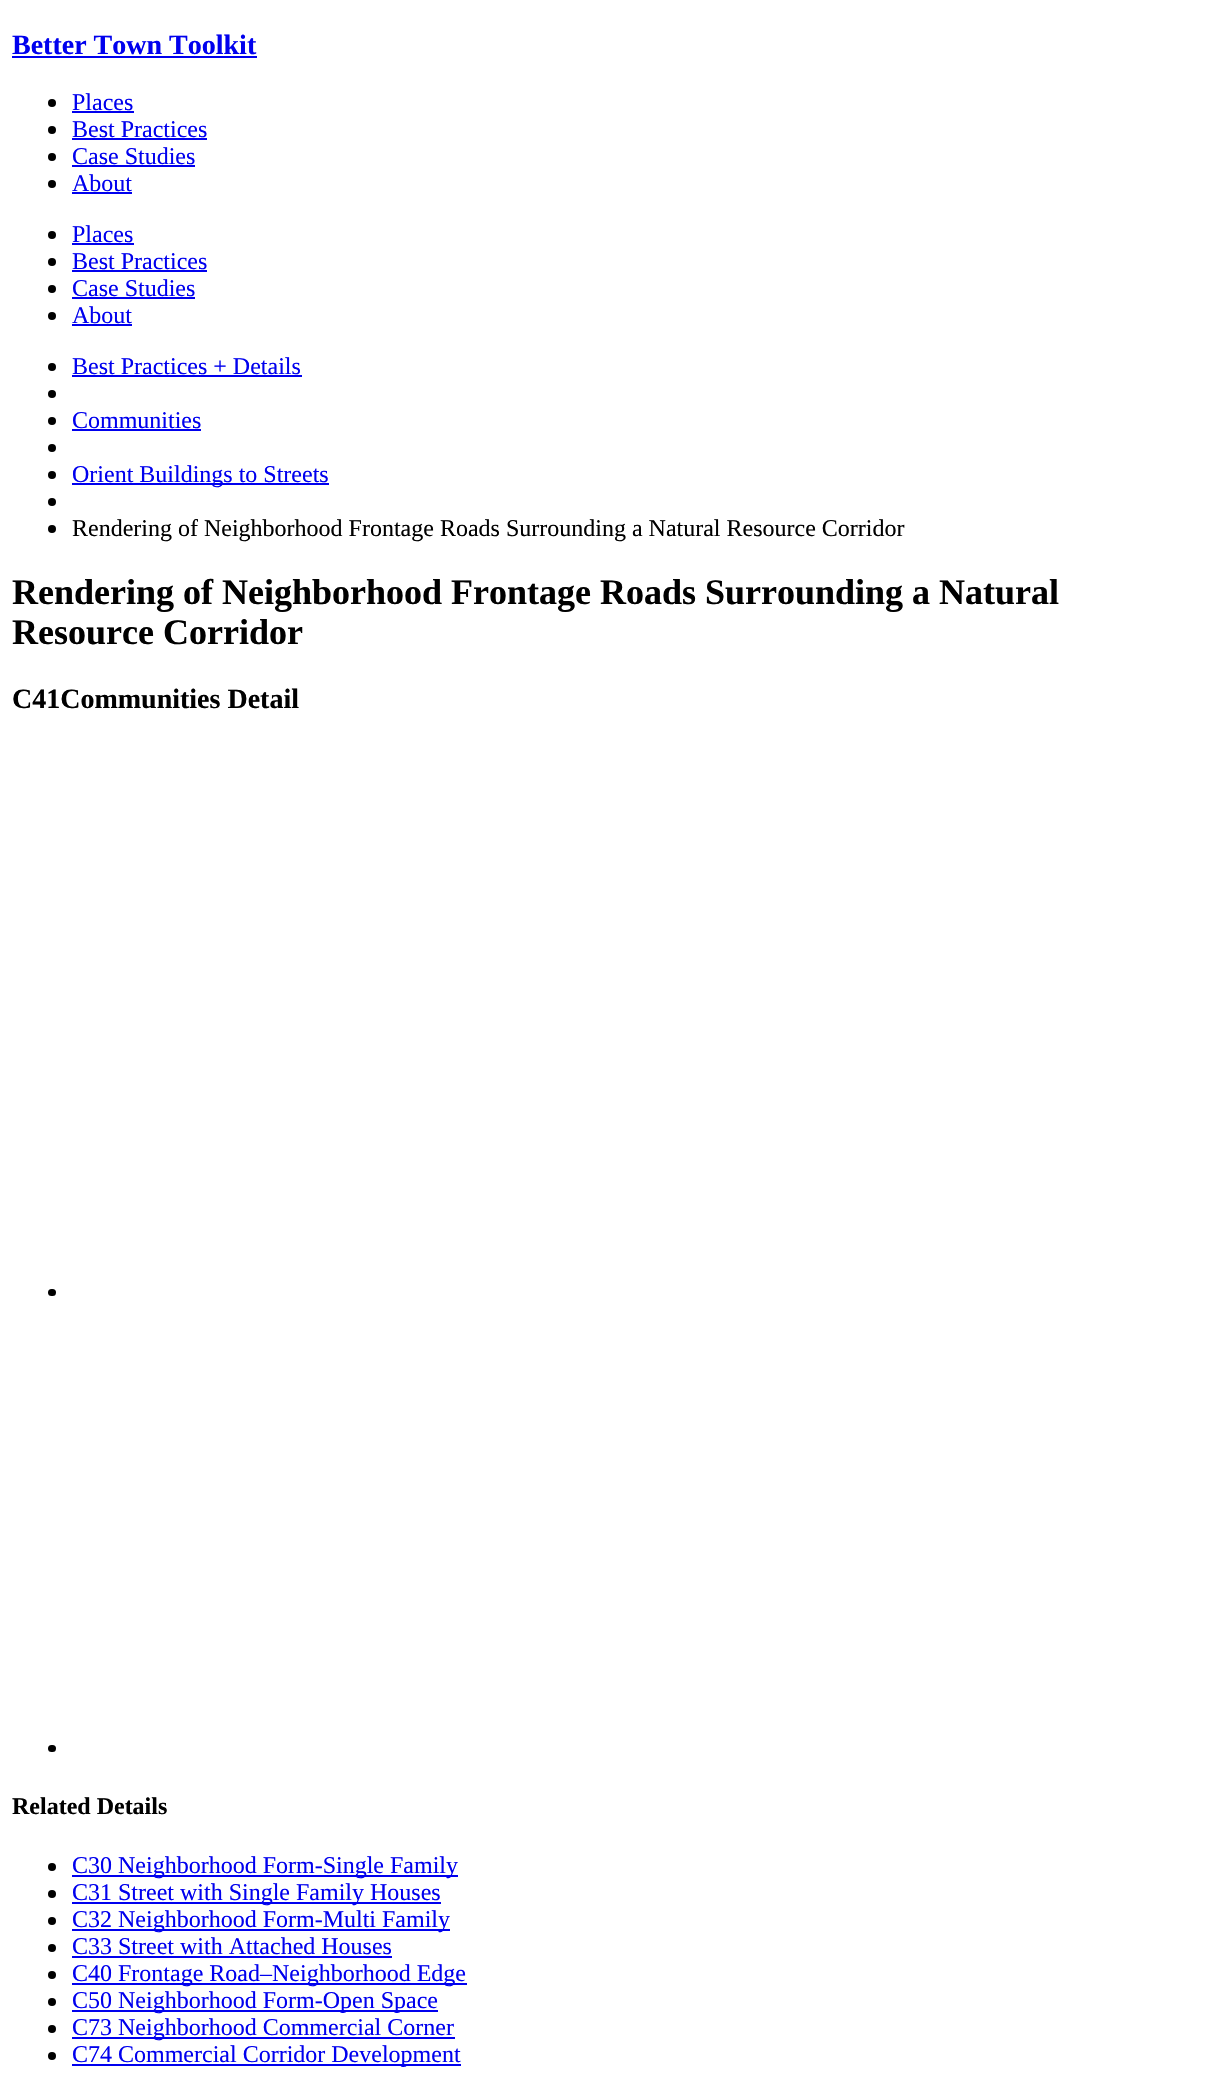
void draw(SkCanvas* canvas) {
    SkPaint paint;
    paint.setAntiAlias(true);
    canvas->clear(0xFFFFFFFF);
    SkFont font1(fontMgr->matchFamilyStyle("Liberation Serif", SkFontStyle::Bold()), 28);
    font1.setSubpixel(true);
    paint.setColor(0xFF0000EE);
    canvas->drawString("Better Town Toolkit", 12, 54, font1, paint);
    canvas->drawRect(SkRect::MakeXYWH(12, 56, 245, 2), paint);
    paint.setColor(0xFF000000);
    canvas->drawCircle(52, 103, 4, paint);
    SkFont font2(fontMgr->matchFamilyStyle("Liberation Serif", SkFontStyle::Normal()), 24);
    font2.setSubpixel(true);
    paint.setColor(0xFF0000EE);
    canvas->drawString("Places", 72, 110, font2, paint);
    canvas->drawRect(SkRect::MakeXYWH(72, 111, 62, 2), paint);
    paint.setColor(0xFF000000);
    canvas->drawCircle(52, 130, 4, paint);
    paint.setColor(0xFF0000EE);
    canvas->drawString("Best Practices", 72, 137, font2, paint);
    canvas->drawRect(SkRect::MakeXYWH(72, 138, 135, 2), paint);
    paint.setColor(0xFF000000);
    canvas->drawCircle(52, 157, 4, paint);
    paint.setColor(0xFF0000EE);
    canvas->drawString("Case Studies", 72, 164, font2, paint);
    canvas->drawRect(SkRect::MakeXYWH(72, 165, 123, 2), paint);
    paint.setColor(0xFF000000);
    canvas->drawCircle(52, 184, 4, paint);
    paint.setColor(0xFF0000EE);
    canvas->drawString("About", 72, 191, font2, paint);
    canvas->drawRect(SkRect::MakeXYWH(72, 192, 60, 2), paint);
    paint.setColor(0xFF000000);
    canvas->drawCircle(52, 235, 4, paint);
    paint.setColor(0xFF0000EE);
    canvas->drawString("Places", 72, 242, font2, paint);
    canvas->drawRect(SkRect::MakeXYWH(72, 243, 62, 2), paint);
    paint.setColor(0xFF000000);
    canvas->drawCircle(52, 262, 4, paint);
    paint.setColor(0xFF0000EE);
    canvas->drawString("Best Practices", 72, 269, font2, paint);
    canvas->drawRect(SkRect::MakeXYWH(72, 270, 135, 2), paint);
    paint.setColor(0xFF000000);
    canvas->drawCircle(52, 289, 4, paint);
    paint.setColor(0xFF0000EE);
    canvas->drawString("Case Studies", 72, 296, font2, paint);
    canvas->drawRect(SkRect::MakeXYWH(72, 297, 123, 2), paint);
    paint.setColor(0xFF000000);
    canvas->drawCircle(52, 316, 4, paint);
    paint.setColor(0xFF0000EE);
    canvas->drawString("About", 72, 323, font2, paint);
    canvas->drawRect(SkRect::MakeXYWH(72, 324, 60, 2), paint);
    paint.setColor(0xFF000000);
    canvas->drawCircle(52, 367, 4, paint);
    paint.setColor(0xFF0000EE);
    canvas->drawString("Best Practices + Details", 72, 374, font2, paint);
    canvas->drawRect(SkRect::MakeXYWH(72, 375, 230, 2), paint);
    paint.setColor(0xFF000000);
    canvas->drawCircle(52, 394, 4, paint);
    canvas->drawCircle(52, 421, 4, paint);
    paint.setColor(0xFF0000EE);
    canvas->drawString("Communities", 72, 428, font2, paint);
    canvas->drawRect(SkRect::MakeXYWH(72, 429, 129, 2), paint);
    paint.setColor(0xFF000000);
    canvas->drawCircle(52, 448, 4, paint);
    canvas->drawCircle(52, 475, 4, paint);
    paint.setColor(0xFF0000EE);
    canvas->drawRect(SkRect::MakeXYWH(72, 483, 257, 2), paint);
    canvas->drawString("Orient Buildings to Streets", 72, 482, font2, paint);
    paint.setColor(0xFF000000);
    canvas->drawCircle(52, 502, 4, paint);
    canvas->drawCircle(52, 529, 4, paint);
    canvas->drawString("Rendering of Neighborhood Frontage Roads Surrounding a Natural Resource Corridor", 72, 536, font2, paint);
    SkFont font3(fontMgr->matchFamilyStyle("Liberation Serif", SkFontStyle::Bold()), 36);
    font3.setSubpixel(true);
    canvas->drawString("Rendering of Neighborhood Frontage Roads Surrounding a Natural", 12, 604, font3, paint);
    canvas->drawString("Resource Corridor", 12, 644, font3, paint);
    canvas->drawString("C41Communities Detail", 12, 708, font1, paint);
    canvas->drawRoundRect(SkRect::MakeXYWH(48, 1289, 8, 7), 3.5f, 3.5f, paint);
    canvas->drawRoundRect(SkRect::MakeXYWH(48, 1745, 8, 7), 3.5f, 3.5f, paint);
    SkFont font4(fontMgr->matchFamilyStyle("Liberation Serif", SkFontStyle::Bold()), 24);
    font4.setSubpixel(true);
    canvas->drawString("Related Details", 12, 1814, font4, paint);
    canvas->drawCircle(52, 1867, 4, paint);
    paint.setColor(0xFF0000EE);
    canvas->drawRect(SkRect::MakeXYWH(72, 1875, 386, 2), paint);
    canvas->drawString("C30 Neighborhood Form-Single Family", 72, 1873, font2, paint);
    paint.setColor(0xFF000000);
    canvas->drawCircle(52, 1894, 4, paint);
    paint.setColor(0xFF0000EE);
    canvas->drawRect(SkRect::MakeXYWH(72, 1902, 369, 2), paint);
    canvas->drawString("C31 Street with Single Family Houses", 72, 1900, font2, paint);
    paint.setColor(0xFF000000);
    canvas->drawCircle(52, 1921, 4, paint);
    paint.setColor(0xFF0000EE);
    canvas->drawRect(SkRect::MakeXYWH(72, 1929, 378, 2), paint);
    canvas->drawString("C32 Neighborhood Form-Multi Family", 72, 1927, font2, paint);
    paint.setColor(0xFF000000);
    canvas->drawCircle(52, 1948, 4, paint);
    paint.setColor(0xFF0000EE);
    canvas->drawString("C33 Street with Attached Houses", 72, 1954, font2, paint);
    canvas->drawRect(SkRect::MakeXYWH(72, 1956, 320, 2), paint);
    paint.setColor(0xFF000000);
    canvas->drawCircle(52, 1975, 4, paint);
    paint.setColor(0xFF0000EE);
    canvas->drawRect(SkRect::MakeXYWH(72, 1983, 395, 2), paint);
    canvas->drawString("C40 Frontage Road–Neighborhood Edge", 72, 1981, font2, paint);
    paint.setColor(0xFF000000);
    canvas->drawCircle(52, 2002, 4, paint);
    paint.setColor(0xFF0000EE);
    canvas->drawRect(SkRect::MakeXYWH(72, 2010, 366, 2), paint);
    canvas->drawString("C50 Neighborhood Form-Open Space", 72, 2008, font2, paint);
    paint.setColor(0xFF000000);
    canvas->drawCircle(52, 2029, 4, paint);
    paint.setColor(0xFF0000EE);
    canvas->drawRect(SkRect::MakeXYWH(72, 2037, 383, 2), paint);
    canvas->drawString("C73 Neighborhood Commercial Corner", 72, 2035, font2, paint);
    paint.setColor(0xFF000000);
    canvas->drawCircle(52, 2056, 4, paint);
    paint.setColor(0xFF0000EE);
    canvas->drawRect(SkRect::MakeXYWH(72, 2064, 389, 2), paint);
    canvas->drawString("C74 Commercial Corridor Development", 72, 2062, font2, paint);
}
